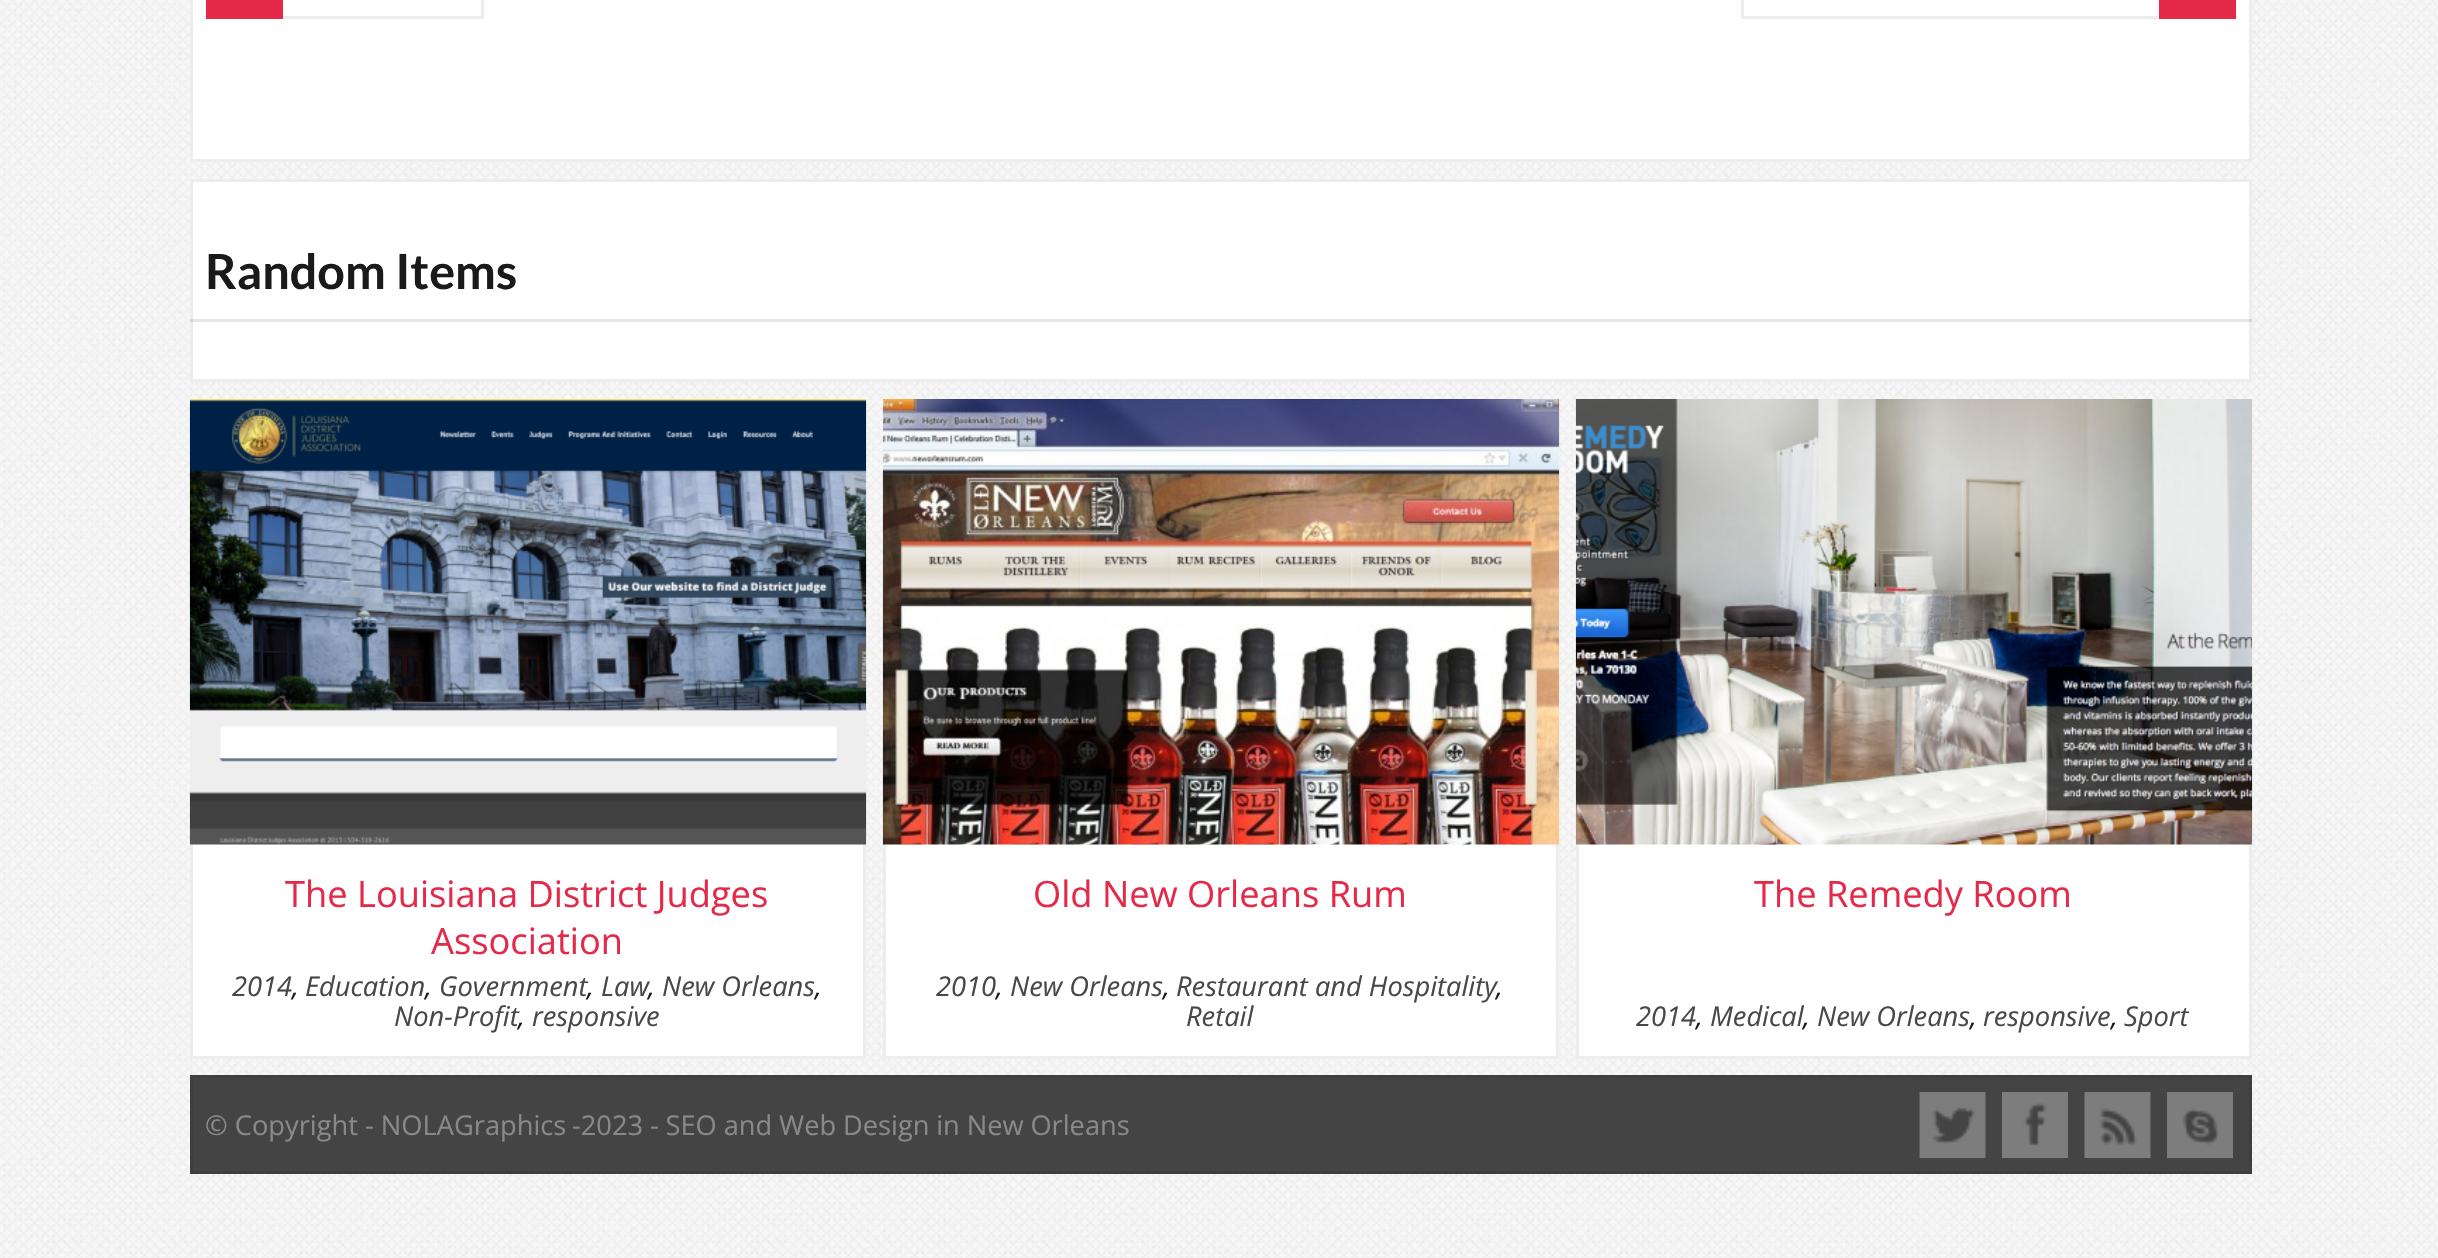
void draw(SkCanvas* canvas) {
    SkPaint paint;
    paint.setAntiAlias(true);
    auto spacedText = [&](const char* s, float x, float y, const SkFont& font, const SkPaint& ink, float letter, float word) {
        std::vector<SkGlyphID> glyphs(font.countText(s, strlen(s), SkTextEncoding::kUTF8));
        std::vector<float> xs(glyphs.size());
        font.textToGlyphs(s, strlen(s), SkTextEncoding::kUTF8, glyphs);
        font.getXPos(glyphs, xs, x);
        float extra = 0;
        for (size_t i = 0; i < glyphs.size(); i++) {
            xs[i] += extra;
            extra += letter + word * (glyphs[i] == font.unicharToGlyph(' '));
        }
        canvas->drawTextBlob(SkTextBlob::MakeFromPosHGlyphs(glyphs, xs, y, font), 0, 0, ink);
    };
    canvas->clear(0xFFFFFFFF);
    canvas->drawImageRect(SkImages::DeferredFromEncodedData(SkData::MakeFromFileName("img1.png")), SkRect::MakeXYWH(0, 0, 2438, 1258), SkSamplingOptions());
    paint.setColor(0xFFFFFFFF);
    canvas->drawRect(SkRect::MakeXYWH(191.5f, -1.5f, 2059, 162), paint);
    paint.setStyle(SkPaint::kStroke_Style);
    paint.setStrokeWidth(3);
    paint.setColor(0xFFEDEDED);
    canvas->drawRect(SkRect::MakeXYWH(191.5f, -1.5f, 2059, 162), paint);
    canvas->drawRect(SkRect::MakeXYWH(207.5f, -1.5f, 275, 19), paint);
    paint.setStyle(SkPaint::kFill_Style);
    paint.setColor(0xFFE52A49);
    canvas->drawRect(SkRect::MakeXYWH(206, 0, 77, 19), paint);
    paint.setStyle(SkPaint::kStroke_Style);
    paint.setColor(0xFFEDEDED);
    canvas->drawRect(SkRect::MakeXYWH(1742.5f, -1.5f, 492, 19), paint);
    paint.setStyle(SkPaint::kFill_Style);
    paint.setColor(0xFFE52A49);
    canvas->drawRect(SkRect::MakeXYWH(2159, 0, 77, 19), paint);
    paint.setColor(0xFFFFFFFF);
    canvas->drawRect(SkRect::MakeXYWH(191.5f, 180.5f, 2059, 200), paint);
    paint.setStyle(SkPaint::kStroke_Style);
    paint.setColor(0xFFEDEDED);
    canvas->drawRect(SkRect::MakeXYWH(191.5f, 180.5f, 2059, 200), paint);
    paint.setStyle(SkPaint::kFill_Style);
    paint.setColor(0x1A000000);
    canvas->drawRect(SkRect::MakeXYWH(190, 319, 2062, 3), paint);
    SkFont font1(fontMgr->matchFamilyStyle("Lato", SkFontStyle::Bold()), 48.5f);
    font1.setSubpixel(true);
    paint.setColor(0xFF1A1A1A);
    canvas->drawString("Random Items", 205, 289, font1, paint);
    paint.setColor(0xFFFFFFFF);
    canvas->drawRect(SkRect::MakeXYWH(193, 844, 670, 212), paint);
    paint.setStyle(SkPaint::kStroke_Style);
    paint.setColor(0xFFEDEDED);
    canvas->drawRect(SkRect::MakeXYWH(191.5f, 400.5f, 673, 657), paint);
    canvas->drawImageRect(SkImages::DeferredFromEncodedData(SkData::MakeFromFileName("img2.png")), SkRect::MakeXYWH(189, 399, 678, 446), SkSamplingOptions());
    SkFont font2(fontMgr->matchFamilyStyle("Open Sans", SkFontStyle::Normal()), 36.25f);
    font2.setSubpixel(true);
    paint.setStyle(SkPaint::kFill_Style);
    paint.setColor(0xFFE52A49);
    canvas->drawString("The Louisiana District Judges", 285, 907, font2, paint);
    canvas->drawString("Association", 431, 954, font2, paint);
    SkFont font3(fontMgr->matchFamilyStyle("Open Sans", SkFontStyle::Italic()), 27.25f);
    font3.setSubpixel(true);
    paint.setColor(0xFF1A1A1A);
    canvas->drawString(",", 292, 996, font3, paint);
    paint.setColor(0xFF484848);
    canvas->drawString("2014", 232, 996, font3, paint);
    paint.setColor(0xFF1A1A1A);
    canvas->drawString(",", 425, 996, font3, paint);
    paint.setColor(0xFF484848);
    canvas->drawString("Education", 305, 996, font3, paint);
    paint.setColor(0xFF1A1A1A);
    canvas->drawString(",", 587, 996, font3, paint);
    paint.setColor(0xFF484848);
    canvas->drawString("Government", 439, 996, font3, paint);
    paint.setColor(0xFF1A1A1A);
    canvas->drawString(",", 648, 996, font3, paint);
    paint.setColor(0xFF484848);
    canvas->drawString("Law", 601, 996, font3, paint);
    paint.setColor(0xFF1A1A1A);
    canvas->drawString(",", 815, 996, font3, paint);
    paint.setColor(0xFF484848);
    canvas->drawString("New Orleans", 662, 996, font3, paint);
    paint.setColor(0xFF1A1A1A);
    canvas->drawString(",", 518, 1026, font3, paint);
    paint.setColor(0xFF484848);
    canvas->drawString("Non-Profit", 394, 1026, font3, paint);
    canvas->drawString("responsive", 532, 1026, font3, paint);
    paint.setColor(0xFFFFFFFF);
    canvas->drawRect(SkRect::MakeXYWH(886, 844, 670, 212), paint);
    paint.setStyle(SkPaint::kStroke_Style);
    paint.setColor(0xFFEDEDED);
    canvas->drawRect(SkRect::MakeXYWH(884.5f, 400.5f, 673, 657), paint);
    canvas->drawImageRect(SkImages::DeferredFromEncodedData(SkData::MakeFromFileName("img3.png")), SkRect::MakeXYWH(882, 399, 678, 446), SkSamplingOptions());
    paint.setStyle(SkPaint::kFill_Style);
    paint.setColor(0xFFE52A49);
    canvas->drawString("Old New Orleans Rum", 1033, 907, font2, paint);
    paint.setColor(0xFF1A1A1A);
    canvas->drawString(",", 996, 996, font3, paint);
    paint.setColor(0xFF484848);
    canvas->drawString("2010", 936, 996, font3, paint);
    paint.setColor(0xFF1A1A1A);
    canvas->drawString(",", 1163, 996, font3, paint);
    paint.setColor(0xFF484848);
    canvas->drawString("New Orleans", 1010, 996, font3, paint);
    paint.setColor(0xFF1A1A1A);
    canvas->drawString(",", 1496, 996, font3, paint);
    paint.setColor(0xFF484848);
    canvas->drawString("Restaurant and Hospitality", 1176, 996, font3, paint);
    canvas->drawString("Retail", 1186, 1026, font3, paint);
    paint.setColor(0xFFFFFFFF);
    canvas->drawRect(SkRect::MakeXYWH(1579, 844, 670, 212), paint);
    paint.setStyle(SkPaint::kStroke_Style);
    paint.setColor(0xFFEDEDED);
    canvas->drawRect(SkRect::MakeXYWH(1577.5f, 400.5f, 673, 657), paint);
    canvas->drawImageRect(SkImages::DeferredFromEncodedData(SkData::MakeFromFileName("img4.png")), SkRect::MakeXYWH(1575, 399, 678, 446), SkSamplingOptions());
    paint.setStyle(SkPaint::kFill_Style);
    paint.setColor(0xFFE52A49);
    canvas->drawString("The Remedy Room", 1754, 907, font2, paint);
    paint.setColor(0xFF1A1A1A);
    canvas->drawString(",", 1696, 1026, font3, paint);
    paint.setColor(0xFF484848);
    canvas->drawString("2014", 1636, 1026, font3, paint);
    paint.setColor(0xFF1A1A1A);
    canvas->drawString(",", 1803, 1026, font3, paint);
    paint.setColor(0xFF484848);
    canvas->drawString("Medical", 1710, 1026, font3, paint);
    paint.setColor(0xFF1A1A1A);
    canvas->drawString(",", 1970, 1026, font3, paint);
    paint.setColor(0xFF484848);
    canvas->drawString("New Orleans", 1817, 1026, font3, paint);
    paint.setColor(0xFF1A1A1A);
    canvas->drawString(",", 2111, 1026, font3, paint);
    paint.setColor(0xFF484848);
    canvas->drawString("responsive", 1983, 1026, font3, paint);
    canvas->drawString("Sport", 2124, 1026, font3, paint);
    paint.setColor(0xFF444444);
    canvas->drawRect(SkRect::MakeXYWH(191.5f, 1076.5f, 2059, 96), paint);
    paint.setStyle(SkPaint::kStroke_Style);
    paint.setColor(0xFF3F3F3F);
    canvas->drawRect(SkRect::MakeXYWH(191.5f, 1076.5f, 2059, 96), paint);
    SkFont font4(fontMgr->matchFamilyStyle("Open Sans", SkFontStyle::Normal()), 27.25f);
    font4.setSubpixel(true);
    paint.setStyle(SkPaint::kFill_Style);
    paint.setColor(0xFF898989);
    canvas->drawString("© Copyright - NOLAGraphics", 205, 1135, font4, paint);
    spacedText("-2023 - SEO and Web Design in New Orleans", 572, 1135, font4, paint, 0, -0.25f);
    canvas->drawImageRect(SkImages::DeferredFromEncodedData(SkData::MakeFromFileName("img5.png")), SkRect::MakeXYWH(1919, 1092, 67, 66), SkSamplingOptions());
    canvas->drawImageRect(SkImages::DeferredFromEncodedData(SkData::MakeFromFileName("img6.png")), SkRect::MakeXYWH(2002, 1092, 66, 66), SkSamplingOptions());
    canvas->drawImageRect(SkImages::DeferredFromEncodedData(SkData::MakeFromFileName("img7.png")), SkRect::MakeXYWH(2084, 1092, 67, 66), SkSamplingOptions());
    canvas->drawImageRect(SkImages::DeferredFromEncodedData(SkData::MakeFromFileName("img8.png")), SkRect::MakeXYWH(2167, 1092, 66, 66), SkSamplingOptions());
}
